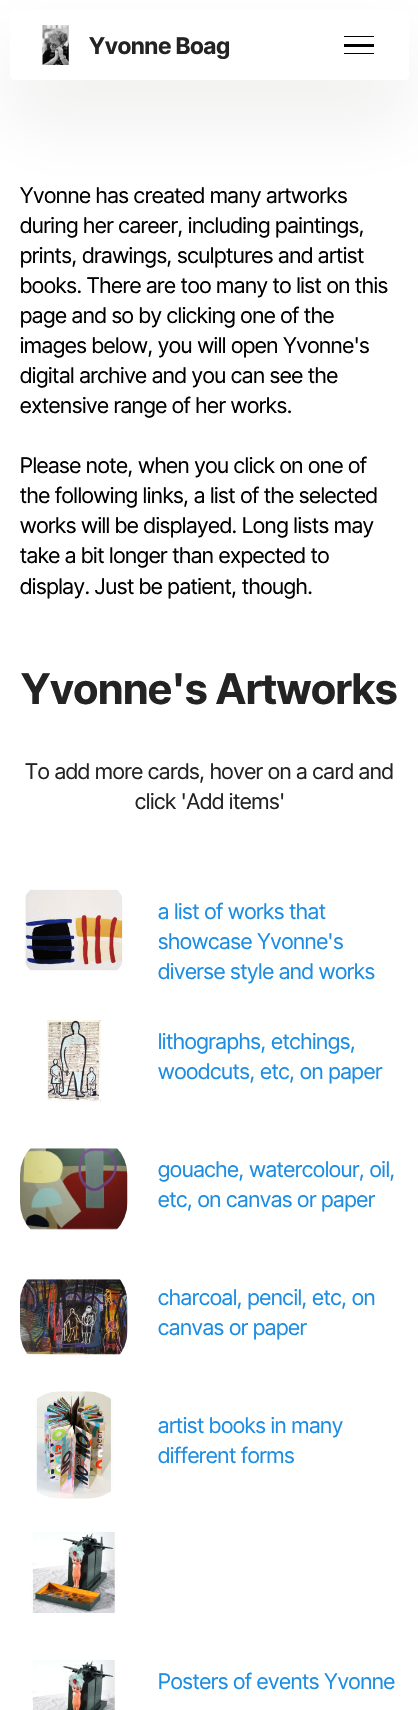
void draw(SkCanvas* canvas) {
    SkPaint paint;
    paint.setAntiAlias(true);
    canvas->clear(0xFFFFFFFF);
    canvas->save();
    canvas->clipPath(SkPathBuilder(SkPathFillType::kEvenOdd).moveTo(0, 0).lineTo(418, 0).lineTo(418, 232).lineTo(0, 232).close().moveTo(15, 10).lineTo(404, 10).cubicTo(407, 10, 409, 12, 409, 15).lineTo(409, 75).cubicTo(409, 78, 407, 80, 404, 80).lineTo(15, 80).cubicTo(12, 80, 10, 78, 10, 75).lineTo(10, 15).cubicTo(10, 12, 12, 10, 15, 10).close().detach(), true);
    paint.setColor(0x141B1F0A);
    paint.setMaskFilter(SkMaskFilter::MakeBlur(kNormal_SkBlurStyle, 37.5f));
    canvas->drawRoundRect(SkRect::MakeXYWH(10, 48, 399, 70), 5, 5, paint);
    paint.setMaskFilter(nullptr);
    canvas->restore();
    canvas->drawImageRect(SkImages::DeferredFromEncodedData(SkData::MakeFromFileName("img1.png")), SkRect::MakeXYWH(42, 25, 27, 40), SkSamplingOptions());
    SkFont font1(fontMgr->matchFamilyStyle("Inter Tight", SkFontStyle::Bold()), 23);
    font1.setSubpixel(true);
    paint.setColor(0xFF232323);
    canvas->drawString("Yvonne Boag", 89, 54, font1, paint);
    paint.setColor(0xFF000000);
    canvas->drawRect(SkRect::MakeXYWH(344, 36, 30, 1), paint);
    canvas->drawRect(SkRect::MakeXYWH(344, 44, 30, 3), paint);
    canvas->drawRect(SkRect::MakeXYWH(344, 53, 30, 1), paint);
    SkFont font2(fontMgr->matchFamilyStyle("Inter Tight", SkFontStyle::Normal()), 21.5f);
    font2.setSubpixel(true);
    canvas->drawString("Yvonne has created many artworks", 20, 203, font2, paint);
    canvas->drawString("during her career, including paintings,", 20, 233, font2, paint);
    canvas->drawString("prints, drawings, sculptures and artist", 20, 263, font2, paint);
    canvas->drawString("books. There are too many to list on this", 20, 293, font2, paint);
    canvas->drawString("page and so by clicking one of the", 20, 323, font2, paint);
    canvas->drawString("images below, you will open Yvonne's", 20, 353, font2, paint);
    canvas->drawString("digital archive and you can see the", 20, 383, font2, paint);
    canvas->drawString("extensive range of her works.", 20, 413, font2, paint);
    canvas->drawString("Please note, when you click on one of", 20, 473, font2, paint);
    canvas->drawString("the following links, a list of the selected", 20, 503, font2, paint);
    canvas->drawString("works will be displayed. Long lists may", 20, 533, font2, paint);
    canvas->drawString("take a bit longer than expected to", 20, 563, font2, paint);
    canvas->drawString("display. Just be patient, though.", 20, 594, font2, paint);
    SkFont font3(fontMgr->matchFamilyStyle("Inter Tight", SkFontStyle::Bold()), 42.25f);
    font3.setSubpixel(true);
    paint.setColor(0xFF232323);
    canvas->drawString("Yvonne's Artworks", 21, 704, font3, paint);
    canvas->drawString("To add more cards, hover on a card and", 25, 779, font2, paint);
    canvas->drawString("click 'Add items'", 135, 809, font2, paint);
    canvas->drawImageRect(SkImages::DeferredFromEncodedData(SkData::MakeFromFileName("img2.png")), SkRect::MakeXYWH(24, 889, 99, 82), SkSamplingOptions());
    paint.setColor(0xFF1C8DE2);
    canvas->drawString("a list of works that", 158, 919, font2, paint);
    canvas->drawString("showcase Yvonne's", 158, 949, font2, paint);
    canvas->drawString("diverse style and works", 158, 979, font2, paint);
    canvas->drawImageRect(SkImages::DeferredFromEncodedData(SkData::MakeFromFileName("img3.png")), SkRect::MakeXYWH(47, 1020, 54, 82), SkSamplingOptions());
    canvas->drawString("lithographs, etchings,", 158, 1049, font2, paint);
    canvas->drawString("woodcuts, etc, on paper", 158, 1079, font2, paint);
    canvas->drawImageRect(SkImages::DeferredFromEncodedData(SkData::MakeFromFileName("img4.png")), SkRect::MakeXYWH(20, 1148, 108, 82), SkSamplingOptions());
    canvas->drawString("gouache, watercolour, oil,", 158, 1177, font2, paint);
    canvas->drawString("etc, on canvas or paper", 158, 1207, font2, paint);
    canvas->drawImageRect(SkImages::DeferredFromEncodedData(SkData::MakeFromFileName("img5.png")), SkRect::MakeXYWH(20, 1276, 108, 82), SkSamplingOptions());
    canvas->drawString("charcoal, pencil, etc, on", 158, 1305, font2, paint);
    canvas->drawString("canvas or paper", 158, 1335, font2, paint);
    canvas->drawImageRect(SkImages::DeferredFromEncodedData(SkData::MakeFromFileName("img6.png")), SkRect::MakeXYWH(35, 1391, 79, 108), SkSamplingOptions());
    canvas->drawString("artist books in many", 158, 1433, font2, paint);
    canvas->drawString("different forms", 158, 1463, font2, paint);
    canvas->drawImageRect(SkImages::DeferredFromEncodedData(SkData::MakeFromFileName("img7.png")), SkRect::MakeXYWH(31, 1532, 87, 81), SkSamplingOptions());
    canvas->drawImageRect(SkImages::DeferredFromEncodedData(SkData::MakeFromFileName("img8.png")), SkRect::MakeXYWH(32, 1660, 85, 50), SkSamplingOptions());
    canvas->drawString("Posters of events Yvonne", 158, 1689, font2, paint);
}
